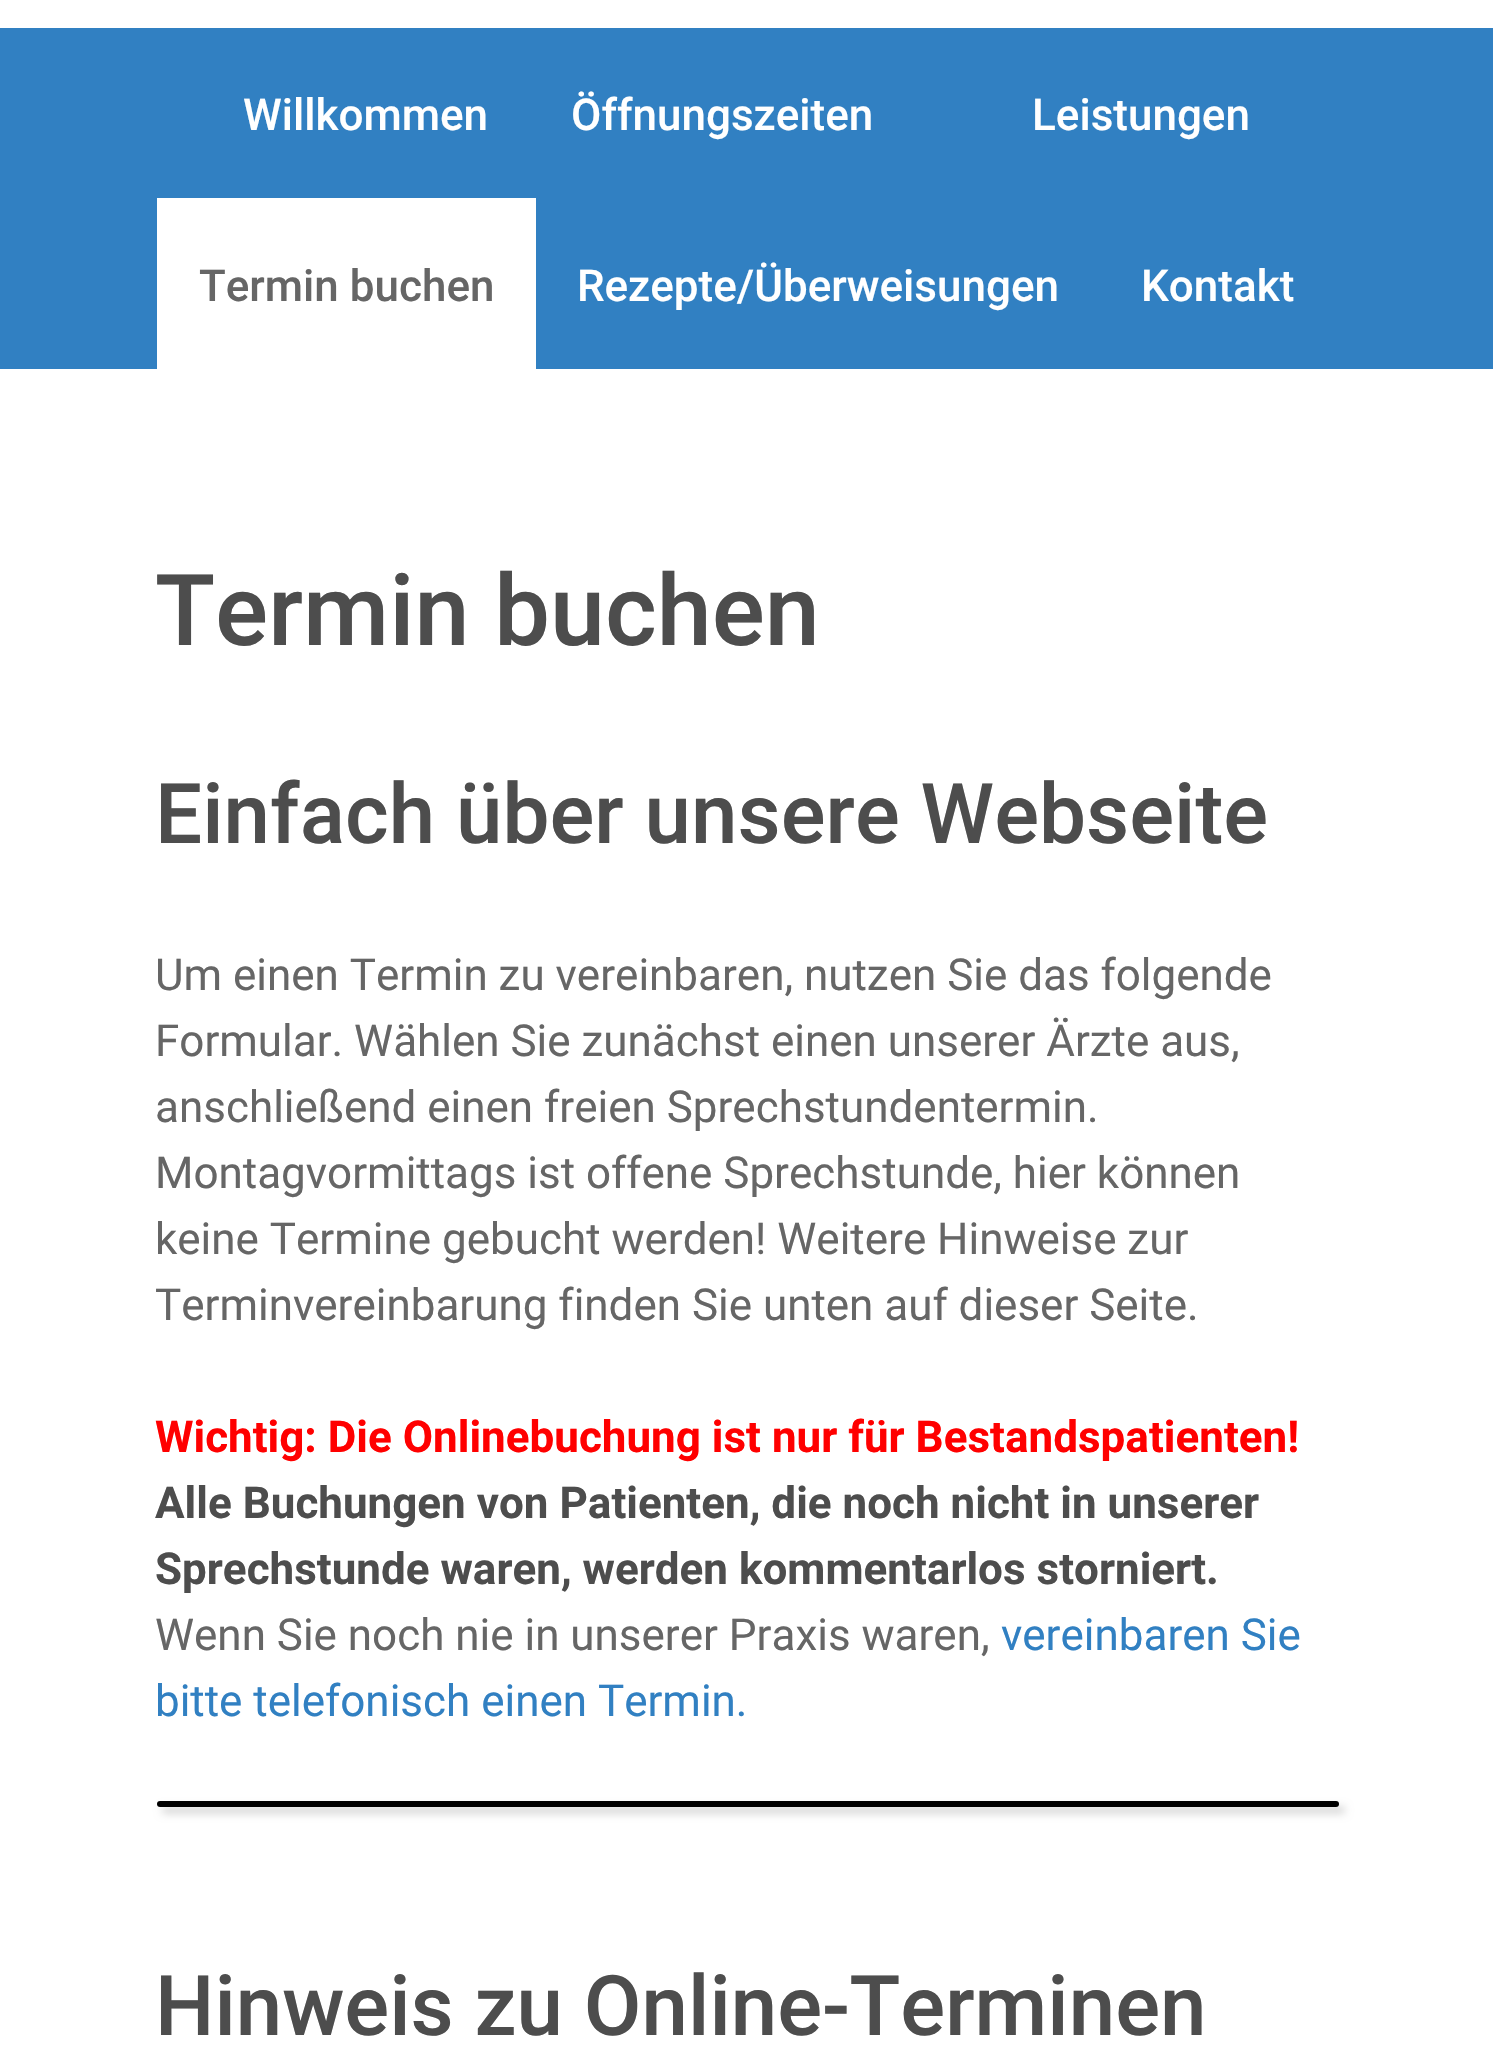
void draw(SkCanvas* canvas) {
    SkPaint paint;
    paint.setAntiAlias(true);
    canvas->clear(0xFFFFFFFF);
    paint.setColor(0xFF3180C2);
    canvas->drawRect(SkRect::MakeXYWH(0, 28, 1493, 341), paint);
    SkFont font1(fontMgr->matchFamilyStyle("Roboto", SkFontStyle(500, SkFontStyle::kNormal_Width, SkFontStyle::kUpright_Slant)), 44);
    font1.setSubpixel(true);
    paint.setColor(0xFFFFFFFF);
    canvas->drawString("Willkommen", 243, 130, font1, paint);
    canvas->drawString("Öffnungszeiten", 571, 130, font1, paint);
    canvas->drawString("Leistungen", 1032, 130, font1, paint);
    canvas->drawRect(SkRect::MakeXYWH(157, 198, 379, 171), paint);
    paint.setColor(0xFF666666);
    canvas->drawString("Termin buchen", 199, 301, font1, paint);
    paint.setColor(0xFFFFFFFF);
    canvas->drawString("Rezepte/Überweisungen", 577, 301, font1, paint);
    canvas->drawString("Kontakt", 1141, 301, font1, paint);
    SkFont font2(fontMgr->matchFamilyStyle("Roboto", SkFontStyle(500, SkFontStyle::kNormal_Width, SkFontStyle::kUpright_Slant)), 99);
    font2.setSubpixel(true);
    paint.setColor(0xFF4D4D4D);
    canvas->drawString("Termin buchen", 155, 645, font2, paint);
    SkFont font3(fontMgr->matchFamilyStyle("Roboto", SkFontStyle(500, SkFontStyle::kNormal_Width, SkFontStyle::kUpright_Slant)), 83.6f);
    font3.setSubpixel(true);
    canvas->drawString("Einfach über unsere Webseite", 155, 843, font3, paint);
    SkFont font4(fontMgr->matchFamilyStyle("Roboto", SkFontStyle::Normal()), 44);
    font4.setSubpixel(true);
    paint.setColor(0xFF666666);
    canvas->drawString("Um einen Termin zu vereinbaren, nutzen Sie das folgende", 155, 990, font4, paint);
    canvas->drawString("Formular. Wählen Sie zunächst einen unserer Ärzte aus,", 155, 1056, font4, paint);
    canvas->drawString("anschließend einen freien Sprechstundentermin.", 155, 1122, font4, paint);
    canvas->drawString("Montagvormittags ist offene Sprechstunde, hier können", 155, 1188, font4, paint);
    canvas->drawString("keine Termine gebucht werden! Weitere Hinweise zur", 155, 1254, font4, paint);
    canvas->drawString("Terminvereinbarung finden Sie unten auf dieser Seite.", 155, 1320, font4, paint);
    SkFont font5(fontMgr->matchFamilyStyle("Roboto", SkFontStyle::Bold()), 44);
    font5.setSubpixel(true);
    paint.setColor(0xFFFF0000);
    canvas->drawString("Wichtig: Die Onlinebuchung ist nur für Bestandspatienten!", 155, 1452, font5, paint);
    paint.setColor(0xFF4D4D4D);
    canvas->drawString("Alle Buchungen von Patienten, die noch nicht in unserer", 155, 1518, font5, paint);
    canvas->drawString("Sprechstunde waren, werden kommentarlos storniert.", 155, 1584, font5, paint);
    paint.setColor(0xFF666666);
    canvas->drawString("Wenn Sie noch nie in unserer Praxis waren,", 155, 1650, font4, paint);
    paint.setColor(0xFF3180C2);
    canvas->drawString("vereinbaren Sie", 1001, 1650, font4, paint);
    canvas->drawString("bitte telefonisch einen Termin.", 155, 1716, font4, paint);
    paint.setColor(0xFFCCCCCC);
    paint.setMaskFilter(SkMaskFilter::MakeBlur(kNormal_SkBlurStyle, 4));
    canvas->drawRoundRect(SkRect::MakeXYWH(162, 1807, 1183, 6), 3, 3, paint);
    paint.setMaskFilter(nullptr);
    paint.setColor(0xFF000000);
    canvas->drawRoundRect(SkRect::MakeXYWH(157, 1801, 1182, 6), 3, 3, paint);
    paint.setColor(0xFF4D4D4D);
    canvas->drawString("Hinweis zu Online-Terminen", 155, 2035, font3, paint);
}
